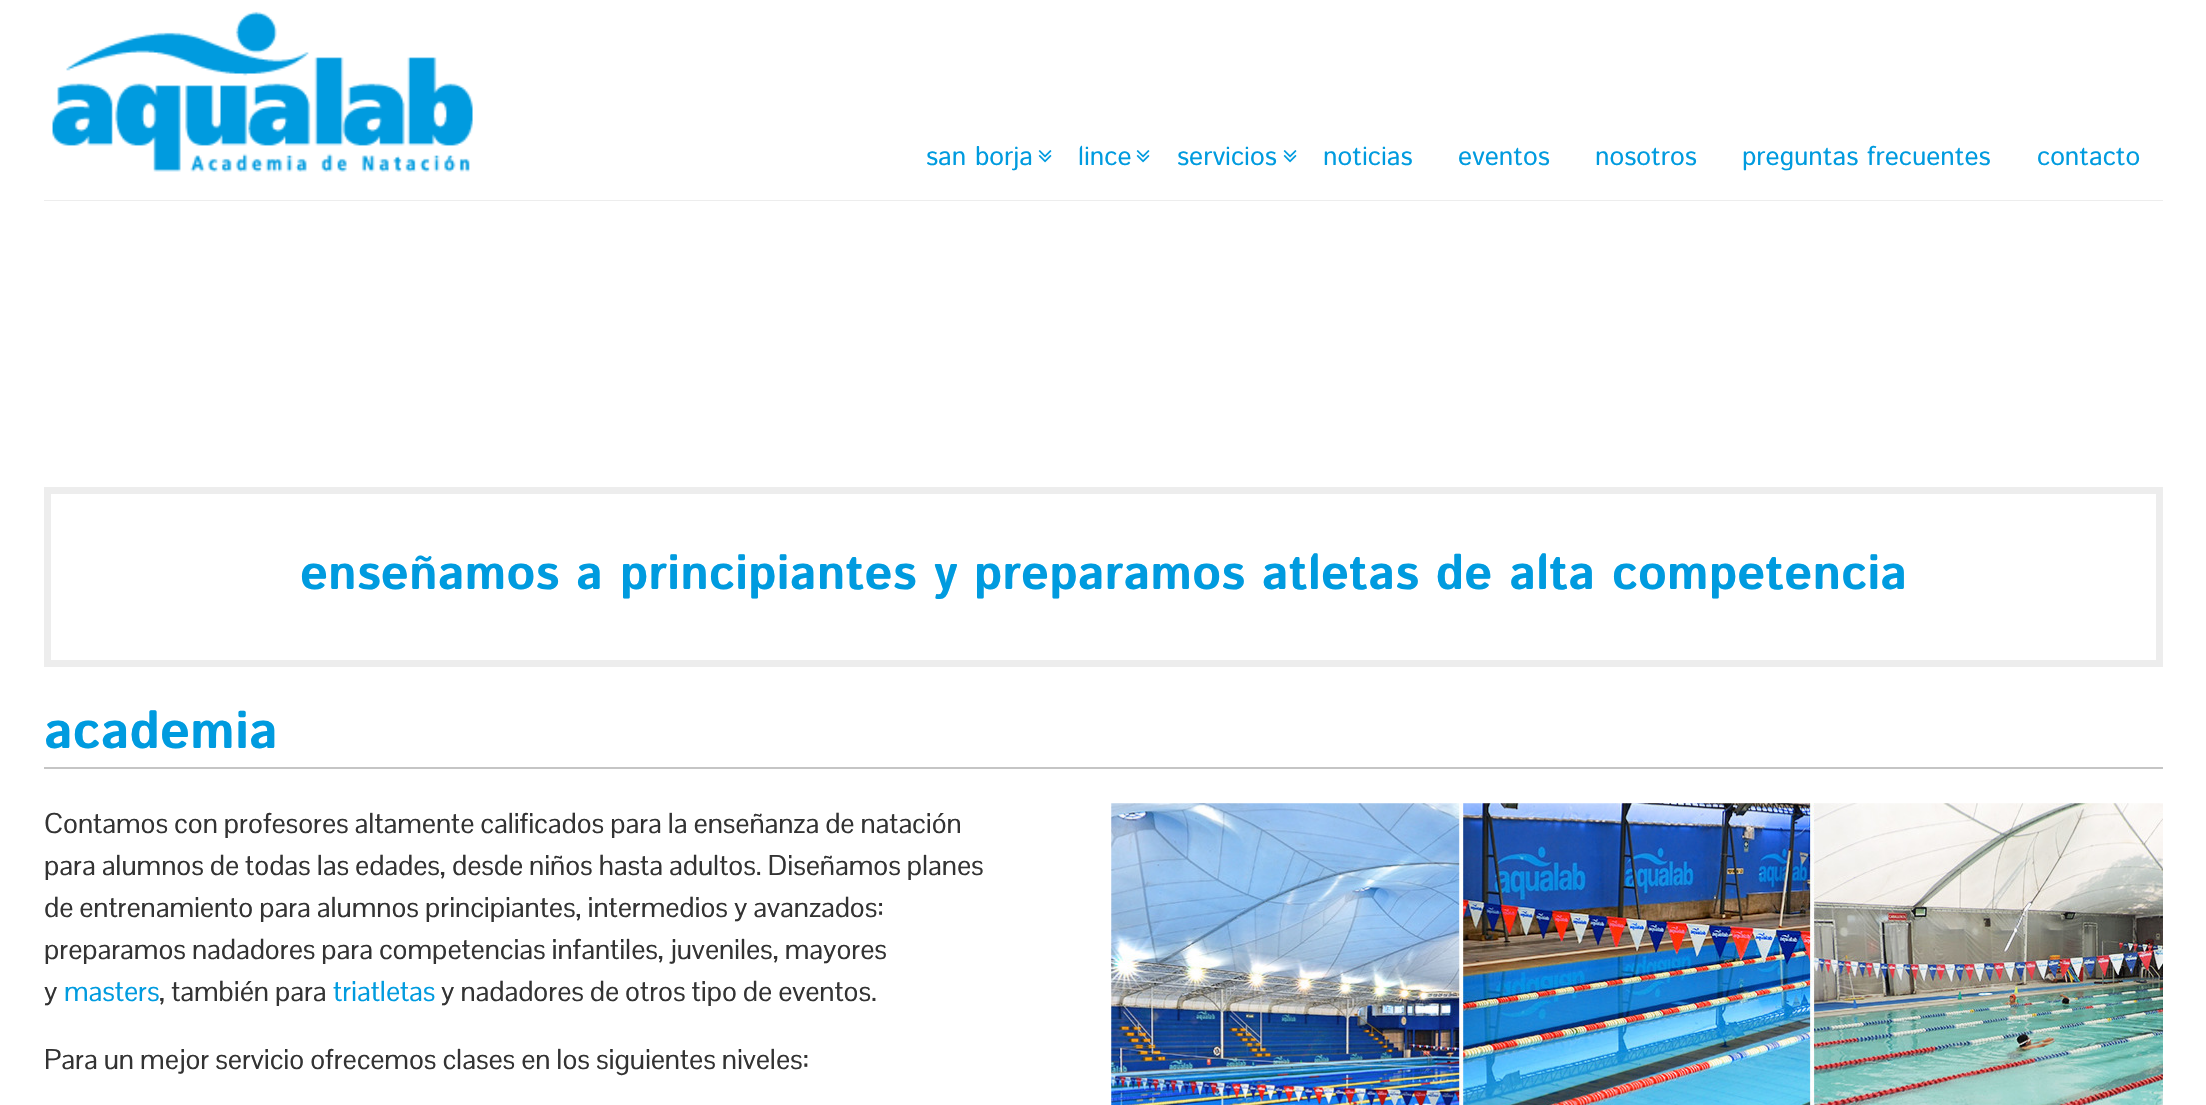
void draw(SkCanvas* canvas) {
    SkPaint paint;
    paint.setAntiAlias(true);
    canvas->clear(0xFFFFFFFF);
    paint.setColor(0xFFEDEDED);
    canvas->drawRect(SkRect::MakeXYWH(44, 200, 2119, 1), paint);
    canvas->drawImageRect(SkImages::DeferredFromEncodedData(SkData::MakeFromFileName("img1.png")), SkRect::MakeXYWH(52, 11, 421, 161), SkSamplingOptions());
    SkFont font1(fontMgr->matchFamilyStyle("Istok Web", SkFontStyle::Normal()), 26.25f);
    font1.setSubpixel(true);
    paint.setColor(0xFF009BDF);
    canvas->drawString("san borja", 926, 165, font1, paint);
    canvas->drawImageRect(SkImages::DeferredFromEncodedData(SkData::MakeFromFileName("img2.png")), SkRect::MakeXYWH(1038, 150, 14, 13), SkSamplingOptions());
    canvas->drawString("lince", 1078, 165, font1, paint);
    canvas->drawImageRect(SkImages::DeferredFromEncodedData(SkData::MakeFromFileName("img2.png")), SkRect::MakeXYWH(1136, 150, 14, 13), SkSamplingOptions());
    canvas->drawString("servicios", 1177, 165, font1, paint);
    canvas->drawImageRect(SkImages::DeferredFromEncodedData(SkData::MakeFromFileName("img2.png")), SkRect::MakeXYWH(1283, 150, 14, 13), SkSamplingOptions());
    canvas->drawString("noticias", 1323, 165, font1, paint);
    canvas->drawString("eventos", 1458, 165, font1, paint);
    canvas->drawString("nosotros", 1595, 165, font1, paint);
    canvas->drawString("preguntas frecuentes", 1742, 165, font1, paint);
    canvas->drawString("contacto", 2037, 165, font1, paint);
    paint.setStyle(SkPaint::kStroke_Style);
    paint.setStrokeWidth(7);
    paint.setColor(0xFFEDEDED);
    canvas->drawRect(SkRect::MakeXYWH(47.5f, 490.5f, 2112, 173), paint);
    SkFont font2(fontMgr->matchFamilyStyle("Istok Web", SkFontStyle::Bold()), 49);
    font2.setSubpixel(true);
    paint.setStyle(SkPaint::kFill_Style);
    paint.setColor(0xFF009BDF);
    canvas->drawString("enseñamos a principiantes y preparamos atletas de alta competencia", 300, 589, font2, paint);
    paint.setColor(0xFFC5C5C5);
    canvas->drawRect(SkRect::MakeXYWH(44, 767, 2119, 2), paint);
    SkFont font3(fontMgr->matchFamilyStyle("Istok Web", SkFontStyle::Bold()), 52.5f);
    font3.setSubpixel(true);
    paint.setColor(0xFF009BDF);
    canvas->drawString("academia", 44, 748, font3, paint);
    SkFont font4(fontMgr->matchFamilyStyle("Pontano Sans", SkFontStyle::Normal()), 28);
    font4.setSubpixel(true);
    paint.setColor(0xFF333333);
    canvas->drawString("Contamos con profesores altamente calificados para la enseñanza de natación", 44, 833, font4, paint);
    canvas->drawString("para alumnos de todas las edades, desde niños hasta adultos. Diseñamos planes", 44, 875, font4, paint);
    canvas->drawString("de entrenamiento para alumnos principiantes, intermedios y avanzados:", 44, 917, font4, paint);
    canvas->drawString("preparamos nadadores para competencias infantiles, juveniles, mayores", 44, 959, font4, paint);
    canvas->drawString("y", 44, 1001, font4, paint);
    paint.setColor(0xFF009BDF);
    canvas->drawString("masters", 64, 1001, font4, paint);
    paint.setColor(0xFF333333);
    canvas->drawString(", también para", 159, 1001, font4, paint);
    paint.setColor(0xFF009BDF);
    canvas->drawString("triatletas", 333, 1001, font4, paint);
    paint.setColor(0xFF333333);
    canvas->drawString("y nadadores de otros tipo de eventos.", 441, 1001, font4, paint);
    canvas->drawString("Para un mejor servicio ofrecemos clases en los siguientes niveles:", 44, 1069, font4, paint);
    canvas->drawImageRect(SkImages::DeferredFromEncodedData(SkData::MakeFromFileName("img3.png")), SkRect::MakeXYWH(1111, 803, 1052, 302), SkSamplingOptions());
}
